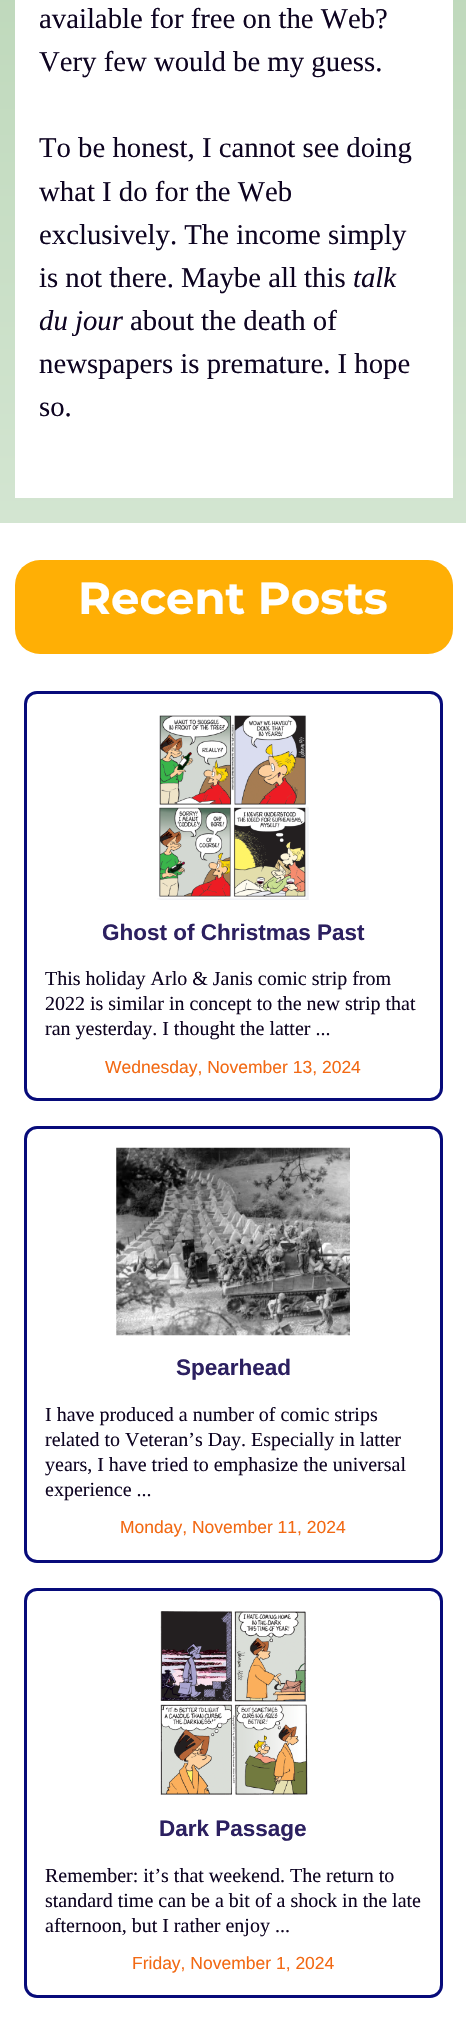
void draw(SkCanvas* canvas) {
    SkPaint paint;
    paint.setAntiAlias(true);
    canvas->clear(0xFFFFFFFF);
    {
        const SkColor colors[] = {0xFFD3E5D1, 0xFF7BAF73};
        const float stops[] = {0, 1};
        const SkPoint ends[] = {{233, 523}, {233, -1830}};
        paint.setShader(SkGradientShader::MakeLinear(ends, colors, stops, 2, SkTileMode::kClamp));
        paint.setAlpha(255);
    }
    canvas->drawRect(SkRect::MakeXYWH(0, 0, 466, 523), paint);
    paint.setShader(nullptr);
    paint.setColor(0xFFFFFFFF);
    canvas->drawRect(SkRect::MakeXYWH(15, 0, 438, 498), paint);
    SkFont font1(fontMgr->matchFamilyStyle("Liberation Serif", SkFontStyle::Normal()), 28.75f);
    font1.setSubpixel(true);
    paint.setColor(0xFF0E0421);
    canvas->drawString("available for free on the Web?", 39, 28, font1, paint);
    canvas->drawString("Very few would be my guess.", 39, 71, font1, paint);
    canvas->drawString("To be honest, I cannot see doing", 39, 157, font1, paint);
    canvas->drawString("what I do for the Web", 39, 201, font1, paint);
    canvas->drawString("exclusively. The income simply", 39, 244, font1, paint);
    canvas->drawString("is not there. Maybe all this", 39, 287, font1, paint);
    SkFont font2(fontMgr->matchFamilyStyle("Liberation Serif", SkFontStyle::Italic()), 28.75f);
    font2.setSubpixel(true);
    canvas->drawString("talk", 353, 287, font2, paint);
    canvas->drawString("du jour", 39, 330, font2, paint);
    canvas->drawString("about the death of", 130, 330, font1, paint);
    canvas->drawString("newspapers is premature. I hope", 39, 373, font1, paint);
    canvas->drawString("so.", 39, 416, font1, paint);
    paint.setColor(0xFFFFAF05);
    canvas->drawRoundRect(SkRect::MakeXYWH(15, 560, 438, 94), 25, 25, paint);
    SkFont font3(fontMgr->matchFamilyStyle("Montserrat", SkFontStyle::Bold()), 45);
    font3.setSubpixel(true);
    paint.setColor(0xFFFFFFFF);
    canvas->drawString("Recent Posts", 78, 614, font3, paint);
    paint.setStyle(SkPaint::kStroke_Style);
    paint.setStrokeWidth(3);
    paint.setColor(0xFF070B7A);
    canvas->drawRoundRect(SkRect::MakeXYWH(25.5f, 692.5f, 416, 407), 11.5f, 11.5f, paint);
    canvas->drawImageRect(SkImages::DeferredFromEncodedData(SkData::MakeFromFileName("img1.png")), SkRect::MakeXYWH(157, 715, 152, 185), SkSamplingOptions());
    SkFont font4(fontMgr->matchFamilyStyle("Liberation Sans", SkFontStyle::Bold()), 22.5f);
    font4.setSubpixel(true);
    paint.setStyle(SkPaint::kFill_Style);
    paint.setColor(0xFF2C2060);
    canvas->drawString("Ghost of Christmas Past", 102, 940, font4, paint);
    SkFont font5(fontMgr->matchFamilyStyle("Liberation Serif", SkFontStyle::Normal()), 20);
    font5.setSubpixel(true);
    paint.setColor(0xFF0E0421);
    canvas->drawString("This holiday Arlo & Janis comic strip from", 45, 985, font5, paint);
    canvas->drawString("2022 is similar in concept to the new strip that", 45, 1010, font5, paint);
    canvas->drawString("ran yesterday. I thought the latter ...", 45, 1035, font5, paint);
    SkFont font6(fontMgr->matchFamilyStyle("Liberation Sans", SkFontStyle::Normal()), 17.5f);
    font6.setSubpixel(true);
    paint.setColor(0xFFF26913);
    canvas->drawString("Wednesday, November 13, 2024", 105, 1073, font6, paint);
    paint.setStyle(SkPaint::kStroke_Style);
    paint.setColor(0xFF070B7A);
    canvas->drawRoundRect(SkRect::MakeXYWH(25.5f, 1127.5f, 416, 434), 11.5f, 11.5f, paint);
    canvas->drawImageRect(SkImages::DeferredFromEncodedData(SkData::MakeFromFileName("img2.png")), SkRect::MakeXYWH(116, 1147, 234, 189), SkSamplingOptions());
    paint.setStyle(SkPaint::kFill_Style);
    paint.setColor(0xFF2C2060);
    canvas->drawString("Spearhead", 176, 1375, font4, paint);
    paint.setColor(0xFF0E0421);
    canvas->drawString("I have produced a number of comic strips", 45, 1421, font5, paint);
    canvas->drawString("related to Veteran’s Day. Especially in latter", 45, 1446, font5, paint);
    canvas->drawString("years, I have tried to emphasize the universal", 45, 1471, font5, paint);
    canvas->drawString("experience ...", 45, 1496, font5, paint);
    paint.setColor(0xFFF26913);
    canvas->drawString("Monday, November 11, 2024", 120, 1533, font6, paint);
    paint.setStyle(SkPaint::kStroke_Style);
    paint.setColor(0xFF070B7A);
    canvas->drawRoundRect(SkRect::MakeXYWH(25.5f, 1589.5f, 416, 407), 11.5f, 11.5f, paint);
    canvas->drawImageRect(SkImages::DeferredFromEncodedData(SkData::MakeFromFileName("img3.png")), SkRect::MakeXYWH(160, 1611, 148, 184), SkSamplingOptions());
    paint.setStyle(SkPaint::kFill_Style);
    paint.setColor(0xFF2C2060);
    canvas->drawString("Dark Passage", 159, 1836, font4, paint);
    paint.setColor(0xFF0E0421);
    canvas->drawString("Remember: it’s that weekend. The return to", 45, 1882, font5, paint);
    canvas->drawString("standard time can be a bit of a shock in the late", 45, 1907, font5, paint);
    canvas->drawString("afternoon, but I rather enjoy ...", 45, 1932, font5, paint);
    paint.setColor(0xFFF26913);
    canvas->drawString("Friday, November 1, 2024", 132, 1969, font6, paint);
}
